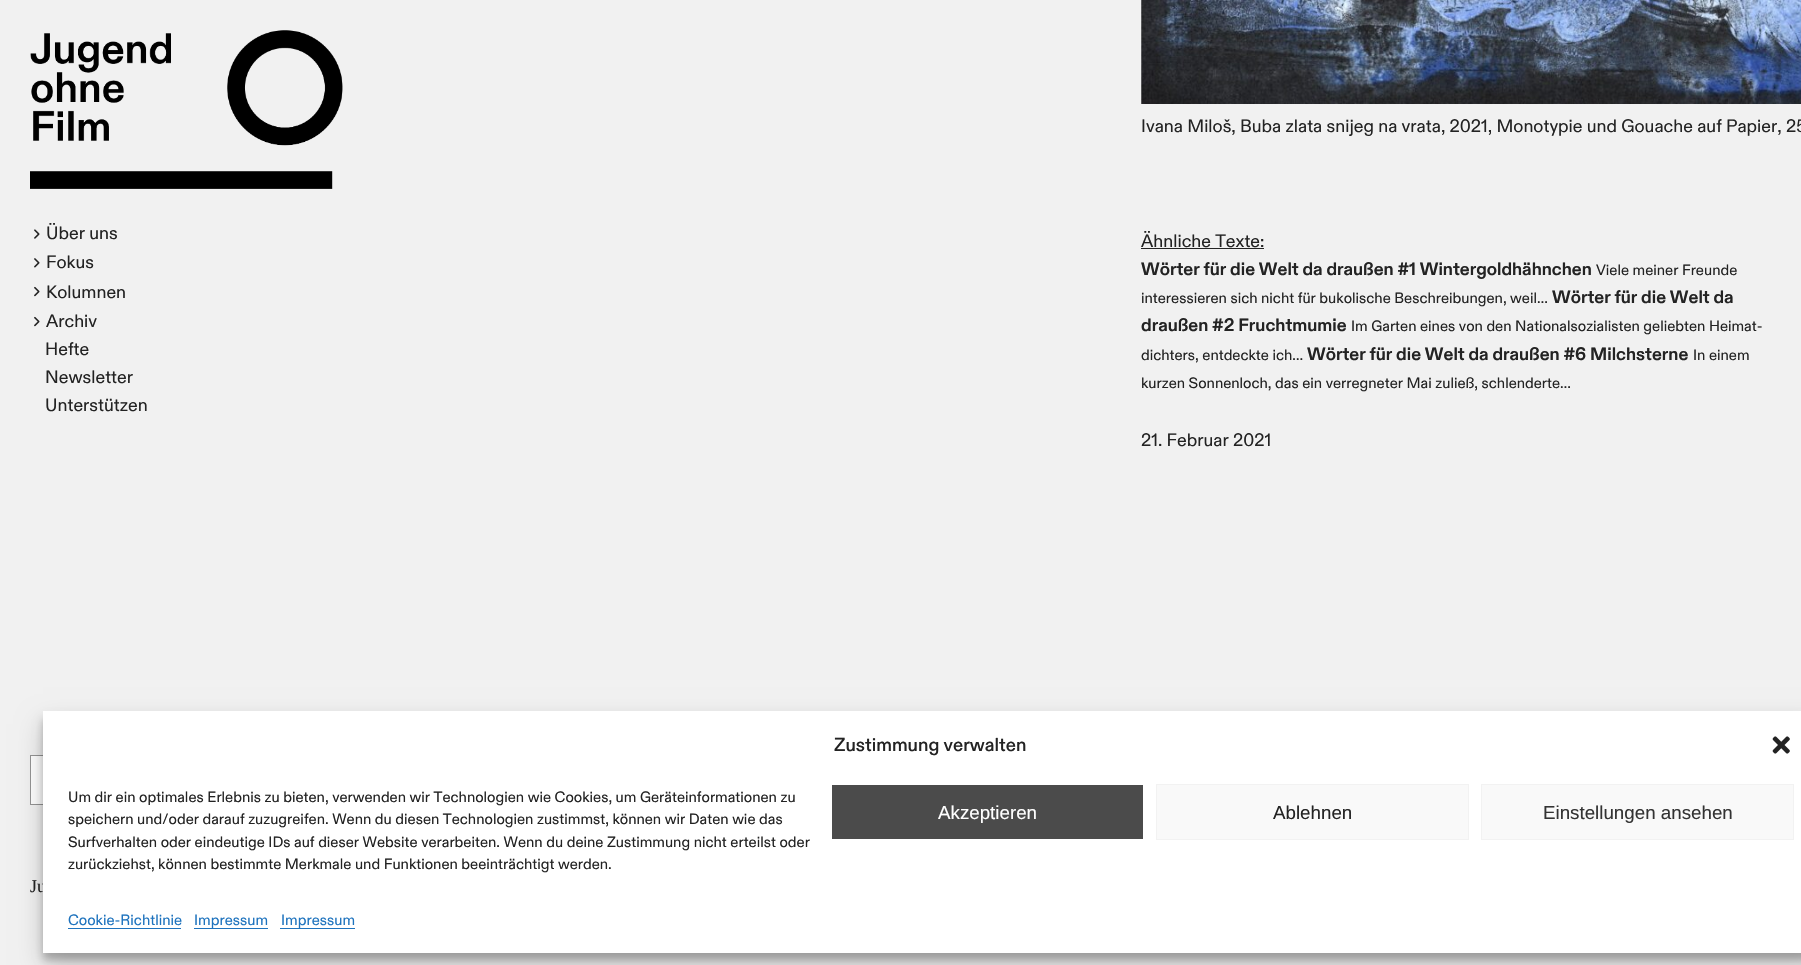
void draw(SkCanvas* canvas) {
    SkPaint paint;
    paint.setAntiAlias(true);
    canvas->clear(0xFFF1F1F1);
    canvas->drawImageRect(SkImages::DeferredFromEncodedData(SkData::MakeFromFileName("img1.png")), SkRect::MakeXYWH(30, 30, 313, 159), SkSamplingOptions());
    canvas->drawImageRect(SkImages::DeferredFromEncodedData(SkData::MakeFromFileName("img2.png")), SkRect::MakeXYWH(34, 229, 6, 10), SkSamplingOptions());
    SkFont font1(fontMgr->matchFamilyStyle("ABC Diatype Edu", SkFontStyle::Normal()), 18);
    font1.setSubpixel(true);
    paint.setColor(0xFF232323);
    canvas->drawString("Über uns", 46, 239, font1, paint);
    canvas->drawImageRect(SkImages::DeferredFromEncodedData(SkData::MakeFromFileName("img3.png")), SkRect::MakeXYWH(34, 258, 6, 10), SkSamplingOptions());
    canvas->drawString("Fokus", 46, 268, font1, paint);
    canvas->drawImageRect(SkImages::DeferredFromEncodedData(SkData::MakeFromFileName("img4.png")), SkRect::MakeXYWH(34, 286, 6, 11), SkSamplingOptions());
    canvas->drawString("Kolumnen", 46, 298, font1, paint);
    canvas->drawImageRect(SkImages::DeferredFromEncodedData(SkData::MakeFromFileName("img4.png")), SkRect::MakeXYWH(34, 316, 6, 11), SkSamplingOptions());
    canvas->drawString("Archiv", 46, 327, font1, paint);
    canvas->drawString("Hefte", 45, 355, font1, paint);
    canvas->drawString("Newsletter", 45, 383, font1, paint);
    canvas->drawString("Unterstützen", 45, 411, font1, paint);
    canvas->drawImageRect(SkImages::DeferredFromEncodedData(SkData::MakeFromFileName("img5.png")), SkRect::MakeXYWH(1141, 0, 660, 104), SkSamplingOptions());
    canvas->drawString("Ivana Miloš, Buba zlata snijeg na vrata, 2021, Monotypie und Gouache auf Papier, 25", 1141, 132, font1, paint);
    canvas->drawString("Ähnliche Texte:", 1141, 247, font1, paint);
    canvas->drawRect(SkRect::MakeXYWH(1141, 248, 123, 1), paint);
    SkFont font2(fontMgr->matchFamilyStyle("ABC Diatype Edu", SkFontStyle::Bold()), 18);
    font2.setSubpixel(true);
    canvas->drawString("Wörter für die Welt da draußen #1 Wintergoldhähnchen", 1141, 275, font2, paint);
    SkFont font3(fontMgr->matchFamilyStyle("ABC Diatype Edu", SkFontStyle::Normal()), 15);
    font3.setSubpixel(true);
    canvas->drawString("Viele meiner Freunde", 1596, 275, font3, paint);
    canvas->drawString("interessieren sich nicht für bukolische Beschreibungen, weil…", 1141, 303, font3, paint);
    canvas->drawString("Wörter für die Welt da", 1552, 303, font2, paint);
    canvas->drawString("draußen #2 Fruchtmumie", 1141, 331, font2, paint);
    canvas->drawString("Im Garten eines von den Nationalsozialisten geliebten Heimat-", 1351, 331, font3, paint);
    canvas->drawString("dichters, entdeckte ich…", 1141, 360, font3, paint);
    canvas->drawString("Wörter für die Welt da draußen #6 Milchsterne", 1307, 360, font2, paint);
    canvas->drawString("In einem", 1693, 360, font3, paint);
    canvas->drawString("kurzen Sonnenloch, das ein verregneter Mai zuließ, schlenderte…", 1141, 388, font3, paint);
    canvas->drawString("21. Februar 2021", 1141, 446, font1, paint);
    paint.setColor(0xFFFFFFFF);
    canvas->drawRect(SkRect::MakeXYWH(31, 756, 12, 48), paint);
    paint.setStyle(SkPaint::kStroke_Style);
    paint.setStrokeWidth(1);
    paint.setColor(0xFF949494);
    canvas->drawRect(SkRect::MakeXYWH(30.5f, 755.5f, 434, 49), paint);
    SkFont font4(fontMgr->matchFamilyStyle("Liberation Serif", SkFontStyle::Normal()), 18);
    font4.setSubpixel(true);
    paint.setStyle(SkPaint::kFill_Style);
    paint.setColor(0xFF232323);
    canvas->drawString("Ju", 30, 892, font4, paint);
    paint.setColor(0x3B000000);
    paint.setMaskFilter(SkMaskFilter::MakeBlur(kNormal_SkBlurStyle, 4));
    canvas->drawRect(SkRect::MakeXYWH(43, 719, 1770, 241), paint);
    paint.setMaskFilter(nullptr);
    paint.setColor(0x30000000);
    paint.setMaskFilter(SkMaskFilter::MakeBlur(kNormal_SkBlurStyle, 12.5f));
    canvas->drawRect(SkRect::MakeXYWH(43, 724, 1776, 241), paint);
    paint.setMaskFilter(nullptr);
    paint.setColor(0xFFFFFFFF);
    canvas->drawRect(SkRect::MakeXYWH(43, 711, 1758, 242), paint);
    SkFont font5(fontMgr->matchFamilyStyle("ABC Diatype Edu", SkFontStyle(500, SkFontStyle::kNormal_Width, SkFontStyle::kUpright_Slant)), 18.75f);
    font5.setSubpixel(true);
    paint.setColor(0xFF232323);
    canvas->drawString("Zustimmung verwalten", 834, 751, font5, paint);
    canvas->drawImageRect(SkImages::DeferredFromEncodedData(SkData::MakeFromFileName("img6.png")), SkRect::MakeXYWH(1772, 736, 18, 18), SkSamplingOptions());
    canvas->drawString("Um dir ein optimales Erlebnis zu bieten, verwenden wir Technologien wie Cookies, um Geräteinformationen zu", 68, 802, font3, paint);
    canvas->drawString("speichern und/oder darauf zuzugreifen. Wenn du diesen Technologien zustimmst, können wir Daten wie das", 68, 824, font3, paint);
    canvas->drawString("Surfverhalten oder eindeutige IDs auf dieser Website verarbeiten. Wenn du deine Zustimmung nicht erteilst oder", 68, 847, font3, paint);
    canvas->drawString("zurückziehst, können bestimmte Merkmale und Funktionen beeinträchtigt werden.", 68, 869, font3, paint);
    paint.setColor(0xFF4B4B4B);
    canvas->drawRect(SkRect::MakeXYWH(832, 785, 311, 54), paint);
    SkFont font6(fontMgr->matchFamilyStyle("Liberation Sans", SkFontStyle::Normal()), 18.75f);
    font6.setSubpixel(true);
    paint.setColor(0xFFFFFFFF);
    canvas->drawString("Akzeptieren", 938, 819, font6, paint);
    paint.setColor(0xFFF9F9F9);
    canvas->drawRect(SkRect::MakeXYWH(1156.5f, 784.5f, 312, 55), paint);
    paint.setStyle(SkPaint::kStroke_Style);
    paint.setColor(0xFFF2F2F2);
    canvas->drawRect(SkRect::MakeXYWH(1156.5f, 784.5f, 312, 55), paint);
    paint.setStyle(SkPaint::kFill_Style);
    paint.setColor(0xFF232323);
    canvas->drawString("Ablehnen", 1273, 819, font6, paint);
    paint.setColor(0xFFF9F9F9);
    canvas->drawRect(SkRect::MakeXYWH(1481.5f, 784.5f, 312, 55), paint);
    paint.setStyle(SkPaint::kStroke_Style);
    paint.setColor(0xFFF2F2F2);
    canvas->drawRect(SkRect::MakeXYWH(1481.5f, 784.5f, 312, 55), paint);
    paint.setStyle(SkPaint::kFill_Style);
    paint.setColor(0xFF333333);
    canvas->drawString("Einstellungen ansehen", 1543, 819, font6, paint);
    paint.setColor(0xFF1E73BE);
    canvas->drawString("Cookie-Richtlinie", 68, 925, font3, paint);
    canvas->drawRect(SkRect::MakeXYWH(68, 928, 113, 1), paint);
    canvas->drawRect(SkRect::MakeXYWH(194, 928, 74, 1), paint);
    canvas->drawString("Impressum", 194, 925, font3, paint);
    canvas->drawRect(SkRect::MakeXYWH(280, 928, 75, 1), paint);
    canvas->drawString("Impressum", 281, 925, font3, paint);
}
